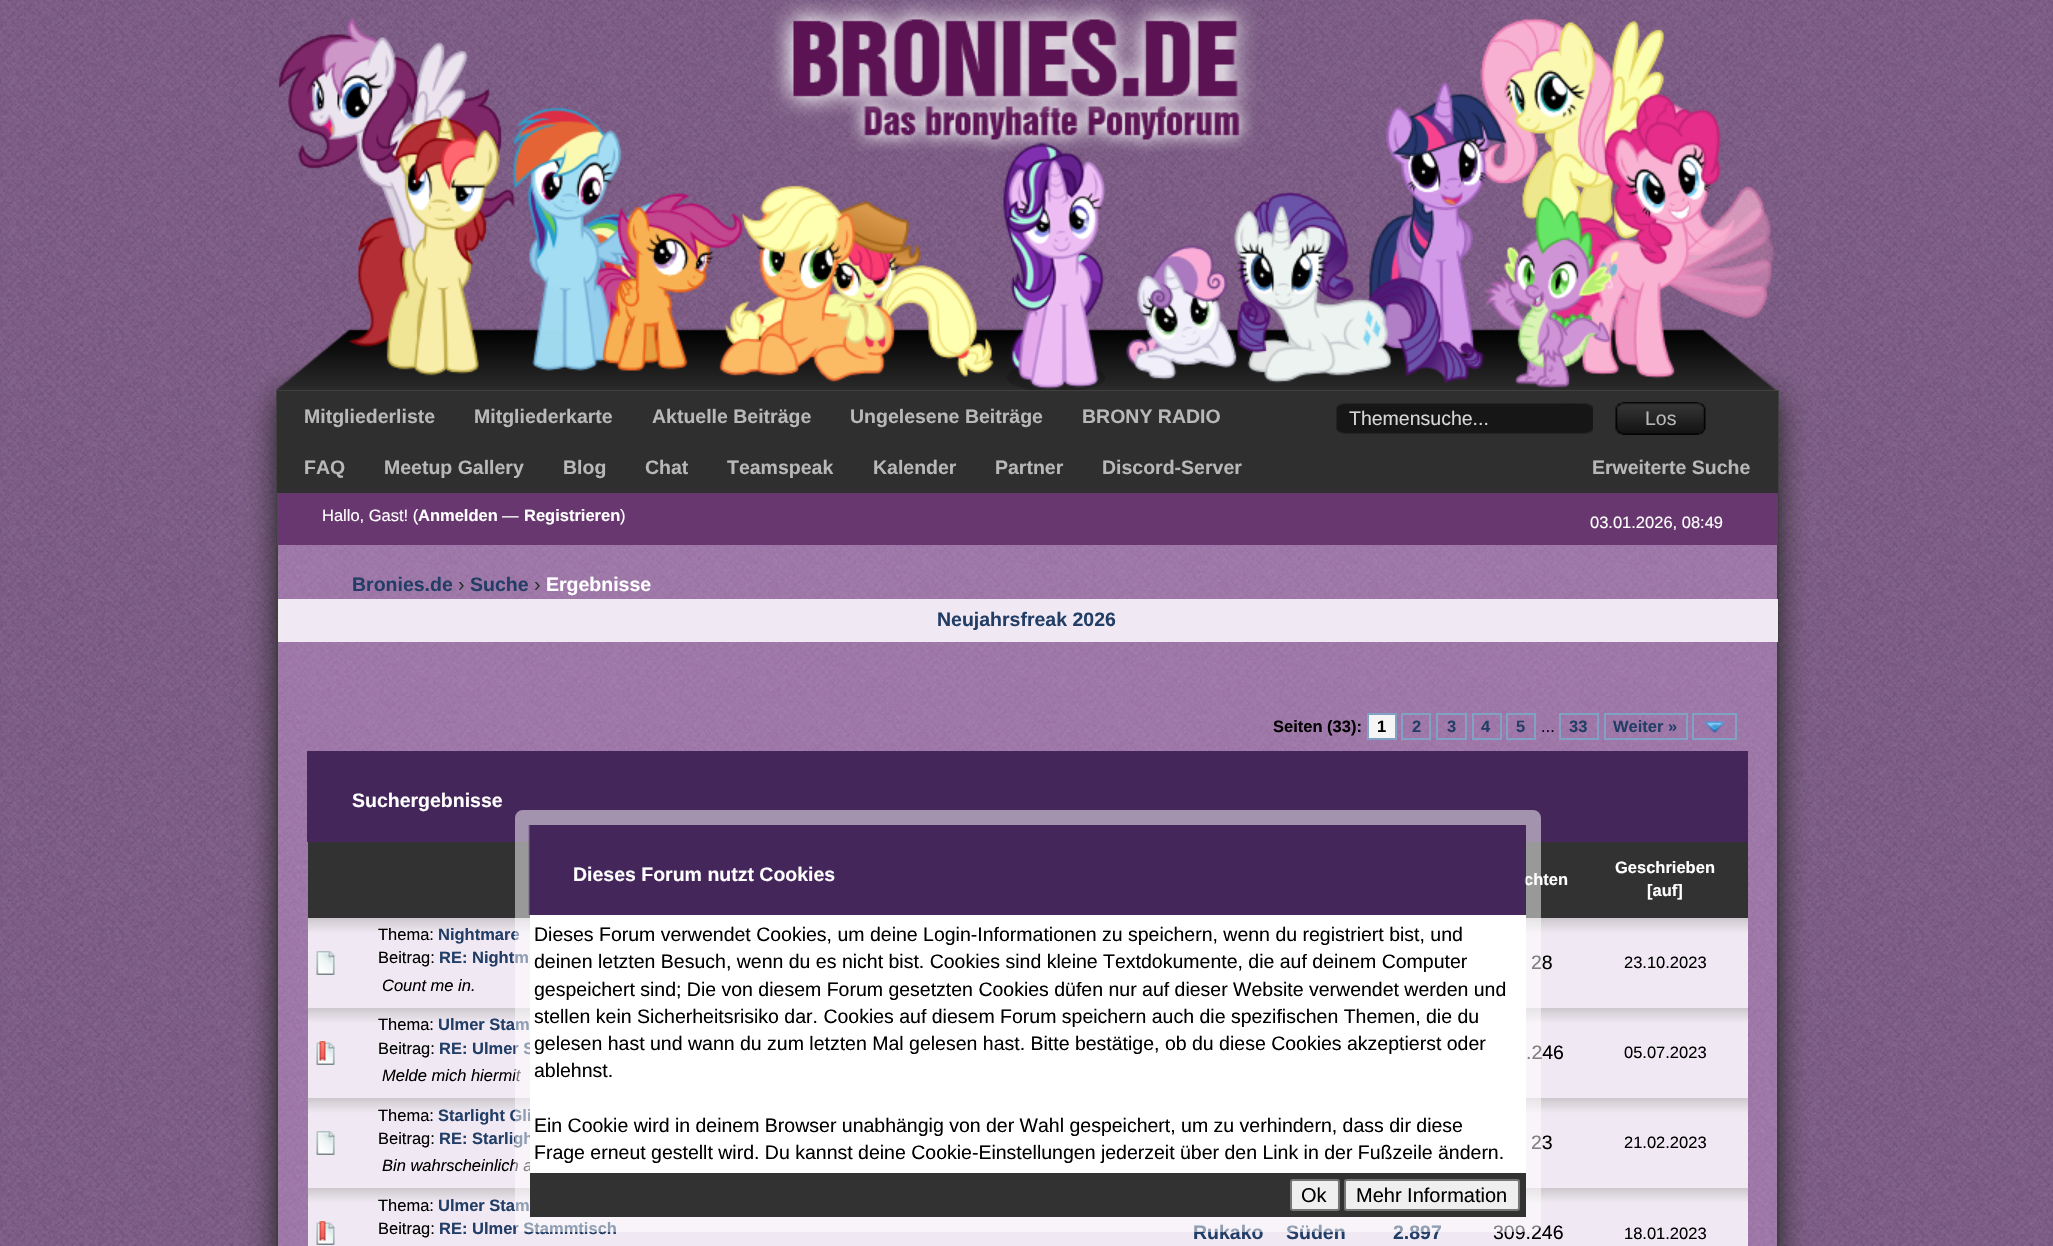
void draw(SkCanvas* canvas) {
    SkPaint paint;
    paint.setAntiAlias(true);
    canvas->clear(0xFFFFFFFF);
    canvas->drawImageRect(SkImages::DeferredFromEncodedData(SkData::MakeFromFileName("img1.png")), SkRect::MakeXYWH(0, 0, 2053, 1246), SkSamplingOptions());
    canvas->save();
    canvas->clipPath(SkPathBuilder(SkPathFillType::kEvenOdd).moveTo(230, 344).lineTo(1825, 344).lineTo(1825, 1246).lineTo(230, 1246).close().moveTo(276, 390).lineTo(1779, 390).lineTo(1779, 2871).cubicTo(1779, 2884.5f, 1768.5f, 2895, 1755, 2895).lineTo(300, 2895).cubicTo(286.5f, 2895, 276, 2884.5f, 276, 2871).close().detach(), true);
    paint.setColor(0xFF212121);
    paint.setMaskFilter(SkMaskFilter::MakeBlur(kNormal_SkBlurStyle, 15));
    canvas->drawRoundRect(SkRect::MakeXYWH(276, 390, 1503, 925), 24, 24, paint);
    paint.setMaskFilter(nullptr);
    canvas->restore();
    canvas->drawImageRect(SkImages::DeferredFromEncodedData(SkData::MakeFromFileName("img2.png")), SkRect::MakeXYWH(276, 0, 1500, 390), SkSamplingOptions());
    paint.setColor(0x66CFA0DC);
    canvas->drawRect(SkRect::MakeXYWH(278, 545, 1499, 701), paint);
    paint.setStyle(SkPaint::kStroke_Style);
    paint.setStrokeWidth(2);
    paint.setColor(0xFF404040);
    canvas->drawRect(SkRect::MakeXYWH(277, 391, 1501, 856), paint);
    paint.setStyle(SkPaint::kFill_Style);
    paint.setColor(0xFF2F2F2F);
    canvas->drawRect(SkRect::MakeXYWH(277, 391, 1501, 102), paint);
    SkFont font1(fontMgr->matchFamilyStyle("Liberation Sans", SkFontStyle::Bold()), 19.5f);
    font1.setSubpixel(true);
    paint.setColor(0xFFB8B8B8);
    canvas->drawString("Mitgliederliste", 304, 423, font1, paint);
    canvas->drawString("Mitgliederkarte", 474, 423, font1, paint);
    canvas->drawString("Aktuelle Beiträge", 652, 423, font1, paint);
    canvas->drawString("Ungelesene Beiträge", 850, 423, font1, paint);
    canvas->drawString("BRONY RADIO", 1082, 423, font1, paint);
    canvas->drawImageRect(SkImages::DeferredFromEncodedData(SkData::MakeFromFileName("img3.png")), SkRect::MakeXYWH(1336, 403, 257, 31), SkSamplingOptions());
    SkFont font2(fontMgr->matchFamilyStyle("Liberation Sans", SkFontStyle::Normal()), 19.5f);
    font2.setSubpixel(true);
    paint.setColor(0xFFD7D7D7);
    canvas->drawString("Themensuche...", 1349, 425, font2, paint);
    canvas->drawImageRect(SkImages::DeferredFromEncodedData(SkData::MakeFromFileName("img4.png")), SkRect::MakeXYWH(1615, 402, 91, 33), SkSamplingOptions());
    paint.setColor(0xFFB8B8B8);
    canvas->drawString("Los", 1645, 425, font2, paint);
    canvas->drawString("FAQ", 304, 474, font1, paint);
    canvas->drawString("Meetup Gallery", 384, 474, font1, paint);
    canvas->drawString("Blog", 563, 474, font1, paint);
    canvas->drawString("Chat", 645, 474, font1, paint);
    canvas->drawString("Teamspeak", 727, 474, font1, paint);
    canvas->drawString("Kalender", 873, 474, font1, paint);
    canvas->drawString("Partner", 995, 474, font1, paint);
    canvas->drawString("Discord-Server", 1102, 474, font1, paint);
    canvas->drawString("Erweiterte Suche", 1592, 474, font1, paint);
    paint.setColor(0xFF683770);
    canvas->drawRect(SkRect::MakeXYWH(277, 493, 1501, 52), paint);
    SkFont font3(fontMgr->matchFamilyStyle("Liberation Sans", SkFontStyle::Normal()), 16.5f);
    font3.setSubpixel(true);
    paint.setColor(0xFFFFFFFF);
    canvas->drawString("Hallo, Gast! (", 322, 521, font3, paint);
    SkFont font4(fontMgr->matchFamilyStyle("Liberation Sans", SkFontStyle::Bold()), 16.5f);
    font4.setSubpixel(true);
    canvas->drawString("Anmelden", 418, 521, font4, paint);
    canvas->drawString("—", 502, 521, font3, paint);
    canvas->drawString("Registrieren", 524, 521, font4, paint);
    canvas->drawString(")", 620, 521, font3, paint);
    canvas->drawString("03.01.2026, 08:49", 1590, 528, font3, paint);
    paint.setColor(0xFF223E66);
    canvas->drawString("Bronies.de", 352, 591, font1, paint);
    paint.setColor(0xFF2E2E2E);
    canvas->drawString("›", 458, 591, font2, paint);
    paint.setColor(0xFF223E66);
    canvas->drawString("Suche", 470, 591, font1, paint);
    paint.setColor(0xFF2E2E2E);
    canvas->drawString("›", 534, 591, font2, paint);
    paint.setColor(0xFFFFFFFF);
    canvas->drawString("Ergebnisse", 546, 591, font1, paint);
    paint.setColor(0xFFF0E9F3);
    canvas->drawRect(SkRect::MakeXYWH(278, 599, 1500, 43), paint);
    paint.setColor(0xFF223E66);
    canvas->drawString("Neujahrsfreak 2026", 937, 626, font1, paint);
    paint.setColor(0xFF000000);
    canvas->drawString("Seiten (33):", 1273, 732, font4, paint);
    paint.setColor(0xFFF5F5F5);
    canvas->drawRect(SkRect::MakeXYWH(1368, 714, 28, 25), paint);
    paint.setStyle(SkPaint::kStroke_Style);
    paint.setColor(0xFF81A2C4);
    canvas->drawRect(SkRect::MakeXYWH(1368, 714, 28, 25), paint);
    paint.setStyle(SkPaint::kFill_Style);
    paint.setColor(0xFF000000);
    canvas->drawString("1", 1377, 732, font4, paint);
    paint.setStyle(SkPaint::kStroke_Style);
    paint.setColor(0xFF81A2C4);
    canvas->drawRect(SkRect::MakeXYWH(1402, 714, 28, 25), paint);
    paint.setStyle(SkPaint::kFill_Style);
    paint.setColor(0xFF223E66);
    canvas->drawString("2", 1412, 732, font4, paint);
    paint.setStyle(SkPaint::kStroke_Style);
    paint.setColor(0xFF81A2C4);
    canvas->drawRect(SkRect::MakeXYWH(1437, 714, 29, 25), paint);
    paint.setStyle(SkPaint::kFill_Style);
    paint.setColor(0xFF223E66);
    canvas->drawString("3", 1447, 732, font4, paint);
    paint.setStyle(SkPaint::kStroke_Style);
    paint.setColor(0xFF81A2C4);
    canvas->drawRect(SkRect::MakeXYWH(1473, 714, 28, 25), paint);
    paint.setStyle(SkPaint::kFill_Style);
    paint.setColor(0xFF223E66);
    canvas->drawString("4", 1481, 732, font4, paint);
    paint.setStyle(SkPaint::kStroke_Style);
    paint.setColor(0xFF81A2C4);
    canvas->drawRect(SkRect::MakeXYWH(1507, 714, 28, 25), paint);
    paint.setStyle(SkPaint::kFill_Style);
    paint.setColor(0xFF223E66);
    canvas->drawString("5", 1516, 732, font4, paint);
    paint.setStyle(SkPaint::kStroke_Style);
    paint.setColor(0xFF81A2C4);
    canvas->drawRect(SkRect::MakeXYWH(1560, 714, 38, 25), paint);
    paint.setStyle(SkPaint::kFill_Style);
    paint.setColor(0xFF223E66);
    canvas->drawString("33", 1569, 732, font4, paint);
    paint.setStyle(SkPaint::kStroke_Style);
    paint.setColor(0xFF81A2C4);
    canvas->drawRect(SkRect::MakeXYWH(1605, 714, 82, 25), paint);
    paint.setStyle(SkPaint::kFill_Style);
    paint.setColor(0xFF223E66);
    canvas->drawString("Weiter »", 1613, 732, font4, paint);
    paint.setStyle(SkPaint::kStroke_Style);
    paint.setColor(0xFF81A2C4);
    canvas->drawRect(SkRect::MakeXYWH(1693, 714, 43, 25), paint);
    paint.setStyle(SkPaint::kFill_Style);
    paint.setColor(0xFF000000);
    canvas->drawString("...", 1541, 732, font3, paint);
    canvas->drawImageRect(SkImages::DeferredFromEncodedData(SkData::MakeFromFileName("img5.png")), SkRect::MakeXYWH(1704, 721, 21, 12), SkSamplingOptions());
    paint.setColor(0xFF45265B);
    canvas->drawRect(SkRect::MakeXYWH(307, 751, 1441, 91), paint);
    paint.setColor(0xFFFFFFFF);
    canvas->drawString("Suchergebnisse", 352, 807, font1, paint);
    paint.setColor(0xFF323232);
    canvas->drawRect(SkRect::MakeXYWH(308, 842, 222, 76), paint);
    canvas->drawRect(SkRect::MakeXYWH(1524, 842, 224, 76), paint);
    paint.setColor(0xFFFFFFFF);
    canvas->drawString("chten", 1524, 885, font4, paint);
    canvas->drawString("Geschrieben", 1615, 873, font4, paint);
    canvas->drawString("[auf]", 1647, 896, font4, paint);
    {
        const SkColor colors[] = {0xFFCDC8CD, 0xFFF0E9F3};
        const float stops[] = {0, 0.17f};
        const SkPoint ends[] = {{326, 918}, {326, 1008}};
        paint.setShader(SkGradientShader::MakeLinear(ends, colors, stops, 2, SkTileMode::kClamp));
        paint.setAlpha(255);
    }
    canvas->drawRect(SkRect::MakeXYWH(308, 918, 36, 90), paint);
    canvas->drawImageRect(SkImages::DeferredFromEncodedData(SkData::MakeFromFileName("img6.png")), SkRect::MakeXYWH(316, 951, 19, 24), SkSamplingOptions());
    {
        const SkColor colors[] = {0xFFCDC8CD, 0xFFF0E9F3};
        const float stops[] = {0, 0.17f};
        const SkPoint ends[] = {{358, 918}, {358, 1008}};
        paint.setShader(SkGradientShader::MakeLinear(ends, colors, stops, 2, SkTileMode::kClamp));
        paint.setAlpha(255);
    }
    canvas->drawRect(SkRect::MakeXYWH(344, 918, 28, 90), paint);
    {
        const SkColor colors[] = {0xFFCDC8CD, 0xFFF0E9F3};
        const float stops[] = {0, 0.17f};
        const SkPoint ends[] = {{773, 918}, {773, 1008}};
        paint.setShader(SkGradientShader::MakeLinear(ends, colors, stops, 2, SkTileMode::kClamp));
        paint.setAlpha(255);
    }
    canvas->drawRect(SkRect::MakeXYWH(372, 918, 158, 90), paint);
    paint.setShader(nullptr);
    paint.setColor(0xFF000000);
    canvas->drawString("Thema:", 378, 940, font3, paint);
    paint.setColor(0xFF223E66);
    canvas->drawString("Nightmare", 438, 940, font4, paint);
    paint.setColor(0xFF000000);
    canvas->drawString("Beitrag:", 378, 963, font3, paint);
    paint.setColor(0xFF223E66);
    canvas->drawString("RE: Nightm", 439, 963, font4, paint);
    SkFont font5(fontMgr->matchFamilyStyle("Liberation Sans", SkFontStyle::Italic()), 16.5f);
    font5.setSubpixel(true);
    paint.setColor(0xFF000000);
    canvas->drawString("Count me in.", 382, 991, font5, paint);
    {
        const SkColor colors[] = {0xFFCDC8CD, 0xFFF0E9F3};
        const float stops[] = {0, 0.17f};
        const SkPoint ends[] = {{1528, 918}, {1528, 1008}};
        paint.setShader(SkGradientShader::MakeLinear(ends, colors, stops, 2, SkTileMode::kClamp));
        paint.setAlpha(255);
    }
    canvas->drawRect(SkRect::MakeXYWH(1526, 918, 57, 90), paint);
    paint.setShader(nullptr);
    paint.setColor(0xFF000000);
    canvas->drawString("28", 1531, 969, font2, paint);
    {
        const SkColor colors[] = {0xFFCDC8CD, 0xFFF0E9F3};
        const float stops[] = {0, 0.17f};
        const SkPoint ends[] = {{1665, 918}, {1665, 1008}};
        paint.setShader(SkGradientShader::MakeLinear(ends, colors, stops, 2, SkTileMode::kClamp));
        paint.setAlpha(255);
    }
    canvas->drawRect(SkRect::MakeXYWH(1583, 918, 165, 90), paint);
    paint.setShader(nullptr);
    paint.setColor(0xFF000000);
    canvas->drawString("23.10.2023", 1624, 968, font3, paint);
    {
        const SkColor colors[] = {0xFFCDC8CD, 0xFFF0E9F3};
        const float stops[] = {0, 0.17f};
        const SkPoint ends[] = {{326, 1008}, {326, 1098}};
        paint.setShader(SkGradientShader::MakeLinear(ends, colors, stops, 2, SkTileMode::kClamp));
        paint.setAlpha(255);
    }
    canvas->drawRect(SkRect::MakeXYWH(308, 1008, 36, 90), paint);
    canvas->drawImageRect(SkImages::DeferredFromEncodedData(SkData::MakeFromFileName("img7.png")), SkRect::MakeXYWH(316, 1041, 19, 24), SkSamplingOptions());
    {
        const SkColor colors[] = {0xFFCDC8CD, 0xFFF0E9F3};
        const float stops[] = {0, 0.17f};
        const SkPoint ends[] = {{358, 1008}, {358, 1098}};
        paint.setShader(SkGradientShader::MakeLinear(ends, colors, stops, 2, SkTileMode::kClamp));
        paint.setAlpha(255);
    }
    canvas->drawRect(SkRect::MakeXYWH(344, 1008, 28, 90), paint);
    {
        const SkColor colors[] = {0xFFCDC8CD, 0xFFF0E9F3};
        const float stops[] = {0, 0.17f};
        const SkPoint ends[] = {{773, 1008}, {773, 1098}};
        paint.setShader(SkGradientShader::MakeLinear(ends, colors, stops, 2, SkTileMode::kClamp));
        paint.setAlpha(255);
    }
    canvas->drawRect(SkRect::MakeXYWH(372, 1008, 158, 90), paint);
    paint.setShader(nullptr);
    paint.setColor(0xFF000000);
    canvas->drawString("Thema:", 378, 1030, font3, paint);
    paint.setColor(0xFF223E66);
    canvas->drawString("Ulmer Stam", 438, 1030, font4, paint);
    paint.setColor(0xFF000000);
    canvas->drawString("Beitrag:", 378, 1054, font3, paint);
    paint.setColor(0xFF223E66);
    canvas->drawString("RE: Ulmer S", 439, 1054, font4, paint);
    paint.setColor(0xFF000000);
    canvas->drawString("Melde mich hiermit", 382, 1081, font5, paint);
    {
        const SkColor colors[] = {0xFFCDC8CD, 0xFFF0E9F3};
        const float stops[] = {0, 0.17f};
        const SkPoint ends[] = {{1528, 1008}, {1528, 1098}};
        paint.setShader(SkGradientShader::MakeLinear(ends, colors, stops, 2, SkTileMode::kClamp));
        paint.setAlpha(255);
    }
    canvas->drawRect(SkRect::MakeXYWH(1526, 1008, 57, 90), paint);
    paint.setShader(nullptr);
    paint.setColor(0xFF000000);
    canvas->drawString(".246", 1526, 1059, font2, paint);
    {
        const SkColor colors[] = {0xFFCDC8CD, 0xFFF0E9F3};
        const float stops[] = {0, 0.17f};
        const SkPoint ends[] = {{1665, 1008}, {1665, 1098}};
        paint.setShader(SkGradientShader::MakeLinear(ends, colors, stops, 2, SkTileMode::kClamp));
        paint.setAlpha(255);
    }
    canvas->drawRect(SkRect::MakeXYWH(1583, 1008, 165, 90), paint);
    paint.setShader(nullptr);
    paint.setColor(0xFF000000);
    canvas->drawString("05.07.2023", 1624, 1058, font3, paint);
    {
        const SkColor colors[] = {0xFFCDC8CD, 0xFFF0E9F3};
        const float stops[] = {0, 0.17f};
        const SkPoint ends[] = {{326, 1098}, {326, 1188}};
        paint.setShader(SkGradientShader::MakeLinear(ends, colors, stops, 2, SkTileMode::kClamp));
        paint.setAlpha(255);
    }
    canvas->drawRect(SkRect::MakeXYWH(308, 1098, 36, 90), paint);
    canvas->drawImageRect(SkImages::DeferredFromEncodedData(SkData::MakeFromFileName("img6.png")), SkRect::MakeXYWH(316, 1131, 19, 24), SkSamplingOptions());
    {
        const SkColor colors[] = {0xFFCDC8CD, 0xFFF0E9F3};
        const float stops[] = {0, 0.17f};
        const SkPoint ends[] = {{358, 1098}, {358, 1188}};
        paint.setShader(SkGradientShader::MakeLinear(ends, colors, stops, 2, SkTileMode::kClamp));
        paint.setAlpha(255);
    }
    canvas->drawRect(SkRect::MakeXYWH(344, 1098, 28, 90), paint);
    {
        const SkColor colors[] = {0xFFCDC8CD, 0xFFF0E9F3};
        const float stops[] = {0, 0.17f};
        const SkPoint ends[] = {{773, 1098}, {773, 1188}};
        paint.setShader(SkGradientShader::MakeLinear(ends, colors, stops, 2, SkTileMode::kClamp));
        paint.setAlpha(255);
    }
    canvas->drawRect(SkRect::MakeXYWH(372, 1098, 158, 90), paint);
    paint.setShader(nullptr);
    paint.setColor(0xFF000000);
    canvas->drawString("Thema:", 378, 1121, font3, paint);
    paint.setColor(0xFF223E66);
    canvas->drawString("Starlight Gli", 438, 1121, font4, paint);
    paint.setColor(0xFF000000);
    canvas->drawString("Beitrag:", 378, 1144, font3, paint);
    paint.setColor(0xFF223E66);
    canvas->drawString("RE: Starligh", 439, 1144, font4, paint);
    paint.setColor(0xFF000000);
    canvas->drawString("Bin wahrscheinlich a", 382, 1171, font5, paint);
    {
        const SkColor colors[] = {0xFFCDC8CD, 0xFFF0E9F3};
        const float stops[] = {0, 0.17f};
        const SkPoint ends[] = {{1528, 1098}, {1528, 1188}};
        paint.setShader(SkGradientShader::MakeLinear(ends, colors, stops, 2, SkTileMode::kClamp));
        paint.setAlpha(255);
    }
    canvas->drawRect(SkRect::MakeXYWH(1526, 1098, 57, 90), paint);
    paint.setShader(nullptr);
    paint.setColor(0xFF000000);
    canvas->drawString("23", 1531, 1149, font2, paint);
    {
        const SkColor colors[] = {0xFFCDC8CD, 0xFFF0E9F3};
        const float stops[] = {0, 0.17f};
        const SkPoint ends[] = {{1665, 1098}, {1665, 1188}};
        paint.setShader(SkGradientShader::MakeLinear(ends, colors, stops, 2, SkTileMode::kClamp));
        paint.setAlpha(255);
    }
    canvas->drawRect(SkRect::MakeXYWH(1583, 1098, 165, 90), paint);
    paint.setShader(nullptr);
    paint.setColor(0xFF000000);
    canvas->drawString("21.02.2023", 1624, 1148, font3, paint);
    {
        const SkColor colors[] = {0xFFCDC8CD, 0xFFF0E9F3};
        const float stops[] = {0, 0.16f};
        const SkPoint ends[] = {{326, 1188}, {326, 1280}};
        paint.setShader(SkGradientShader::MakeLinear(ends, colors, stops, 2, SkTileMode::kClamp));
        paint.setAlpha(255);
    }
    canvas->drawRect(SkRect::MakeXYWH(308, 1188, 36, 58), paint);
    canvas->drawImageRect(SkImages::DeferredFromEncodedData(SkData::MakeFromFileName("img7.png")), SkRect::MakeXYWH(316, 1221, 19, 24), SkSamplingOptions());
    {
        const SkColor colors[] = {0xFFCDC8CD, 0xFFF0E9F3};
        const float stops[] = {0, 0.16f};
        const SkPoint ends[] = {{358, 1188}, {358, 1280}};
        paint.setShader(SkGradientShader::MakeLinear(ends, colors, stops, 2, SkTileMode::kClamp));
        paint.setAlpha(255);
    }
    canvas->drawRect(SkRect::MakeXYWH(344, 1188, 28, 58), paint);
    {
        const SkColor colors[] = {0xFFCDC8CD, 0xFFF0E9F3};
        const float stops[] = {0, 0.16f};
        const SkPoint ends[] = {{773, 1188}, {773, 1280}};
        paint.setShader(SkGradientShader::MakeLinear(ends, colors, stops, 2, SkTileMode::kClamp));
        paint.setAlpha(255);
    }
    canvas->drawRect(SkRect::MakeXYWH(372, 1188, 803, 58), paint);
    paint.setShader(nullptr);
    paint.setColor(0xFF000000);
    canvas->drawString("Thema:", 378, 1211, font3, paint);
    paint.setColor(0xFF223E66);
    canvas->drawString("Ulmer Stam", 438, 1211, font4, paint);
    paint.setColor(0xFF000000);
    canvas->drawString("Beitrag:", 378, 1234, font3, paint);
    paint.setColor(0xFF223E66);
    canvas->drawString("RE: Ulmer Stammtisch", 439, 1234, font4, paint);
    {
        const SkColor colors[] = {0xFFCDC8CD, 0xFFF0E9F3};
        const float stops[] = {0, 0.16f};
        const SkPoint ends[] = {{1228, 1188}, {1228, 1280}};
        paint.setShader(SkGradientShader::MakeLinear(ends, colors, stops, 2, SkTileMode::kClamp));
        paint.setAlpha(255);
    }
    canvas->drawRect(SkRect::MakeXYWH(1175, 1217, 106, 29), paint);
    paint.setShader(nullptr);
    paint.setColor(0xFF223E66);
    canvas->drawString("Rukako", 1193, 1239, font1, paint);
    {
        const SkColor colors[] = {0xFFCDC8CD, 0xFFF0E9F3};
        const float stops[] = {0, 0.16f};
        const SkPoint ends[] = {{1322, 1188}, {1322, 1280}};
        paint.setShader(SkGradientShader::MakeLinear(ends, colors, stops, 2, SkTileMode::kClamp));
        paint.setAlpha(255);
    }
    canvas->drawRect(SkRect::MakeXYWH(1281, 1217, 81, 29), paint);
    paint.setShader(nullptr);
    paint.setColor(0xFF223E66);
    canvas->drawString("Süden", 1286, 1239, font1, paint);
    {
        const SkColor colors[] = {0xFFCDC8CD, 0xFFF0E9F3};
        const float stops[] = {0, 0.16f};
        const SkPoint ends[] = {{1418, 1188}, {1418, 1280}};
        paint.setShader(SkGradientShader::MakeLinear(ends, colors, stops, 2, SkTileMode::kClamp));
        paint.setAlpha(255);
    }
    canvas->drawRect(SkRect::MakeXYWH(1362, 1217, 111, 29), paint);
    paint.setShader(nullptr);
    paint.setColor(0xFF223E66);
    canvas->drawString("2.897", 1393, 1239, font1, paint);
    {
        const SkColor colors[] = {0xFFCDC8CD, 0xFFF0E9F3};
        const float stops[] = {0, 0.16f};
        const SkPoint ends[] = {{1528, 1188}, {1528, 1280}};
        paint.setShader(SkGradientShader::MakeLinear(ends, colors, stops, 2, SkTileMode::kClamp));
        paint.setAlpha(255);
    }
    canvas->drawRect(SkRect::MakeXYWH(1473, 1188, 110, 58), paint);
    paint.setShader(nullptr);
    paint.setColor(0xFF000000);
    canvas->drawString("309.246", 1493, 1239, font2, paint);
    {
        const SkColor colors[] = {0xFFCDC8CD, 0xFFF0E9F3};
        const float stops[] = {0, 0.16f};
        const SkPoint ends[] = {{1665, 1188}, {1665, 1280}};
        paint.setShader(SkGradientShader::MakeLinear(ends, colors, stops, 2, SkTileMode::kClamp));
        paint.setAlpha(255);
    }
    canvas->drawRect(SkRect::MakeXYWH(1583, 1188, 165, 58), paint);
    paint.setShader(nullptr);
    paint.setColor(0xFF000000);
    canvas->drawString("18.01.2023", 1624, 1239, font3, paint);
    paint.setStyle(SkPaint::kStroke_Style);
    paint.setStrokeWidth(15);
    paint.setColor(0x80FFFFFF);
    canvas->drawRoundRect(SkRect::MakeXYWH(522.5f, 817.5f, 1011, 407), 0.5f, 0.5f, paint);
    canvas->drawImageRect(SkImages::DeferredFromEncodedData(SkData::MakeFromFileName("img8.png")), SkRect::MakeXYWH(528, 825, 998, 90), SkSamplingOptions());
    paint.setStyle(SkPaint::kFill_Style);
    paint.setColor(0xFFFFFFFF);
    canvas->drawString("Dieses Forum nutzt Cookies", 573, 881, font1, paint);
    canvas->drawRect(SkRect::MakeXYWH(530, 915, 996, 258), paint);
    paint.setColor(0xFF000000);
    canvas->drawString("Dieses Forum verwendet Cookies, um deine Login-Informationen zu speichern, wenn du registriert bist, und", 534, 941, font2, paint);
    canvas->drawString("deinen letzten Besuch, wenn du es nicht bist. Cookies sind kleine Textdokumente, die auf deinem Computer", 534, 968, font2, paint);
    canvas->drawString("gespeichert sind; Die von diesem Forum gesetzten Cookies düfen nur auf dieser Website verwendet werden und", 534, 996, font2, paint);
    canvas->drawString("stellen kein Sicherheitsrisiko dar. Cookies auf diesem Forum speichern auch die spezifischen Themen, die du", 534, 1023, font2, paint);
    canvas->drawString("gelesen hast und wann du zum letzten Mal gelesen hast. Bitte bestätige, ob du diese Cookies akzeptierst oder", 534, 1050, font2, paint);
    canvas->drawString("ablehnst.", 534, 1077, font2, paint);
    canvas->drawString("Ein Cookie wird in deinem Browser unabhängig von der Wahl gespeichert, um zu verhindern, dass dir diese", 534, 1132, font2, paint);
    canvas->drawString("Frage erneut gestellt wird. Du kannst deine Cookie-Einstellungen jederzeit über den Link in der Fußzeile ändern.", 534, 1159, font2, paint);
    paint.setColor(0xFF323232);
    canvas->drawRect(SkRect::MakeXYWH(530, 1173, 996, 44), paint);
    paint.setColor(0xFFEFEFEF);
    canvas->drawRoundRect(SkRect::MakeXYWH(1291, 1180, 48, 30), 2, 2, paint);
    paint.setStyle(SkPaint::kStroke_Style);
    paint.setStrokeWidth(2);
    paint.setColor(0xFF767676);
    canvas->drawRoundRect(SkRect::MakeXYWH(1291, 1180, 48, 30), 2, 2, paint);
    SkFont font6(fontMgr->matchFamilyStyle("Liberation Sans", SkFontStyle::Normal()), 20);
    font6.setSubpixel(true);
    paint.setStyle(SkPaint::kFill_Style);
    paint.setColor(0xFF000000);
    canvas->drawString("Ok", 1301, 1202, font6, paint);
    paint.setColor(0xFFEFEFEF);
    canvas->drawRoundRect(SkRect::MakeXYWH(1345, 1180, 174, 30), 2, 2, paint);
    paint.setStyle(SkPaint::kStroke_Style);
    paint.setColor(0xFF767676);
    canvas->drawRoundRect(SkRect::MakeXYWH(1345, 1180, 174, 30), 2, 2, paint);
    paint.setStyle(SkPaint::kFill_Style);
    paint.setColor(0xFF000000);
    canvas->drawString("Mehr Information", 1356, 1202, font6, paint);
}
